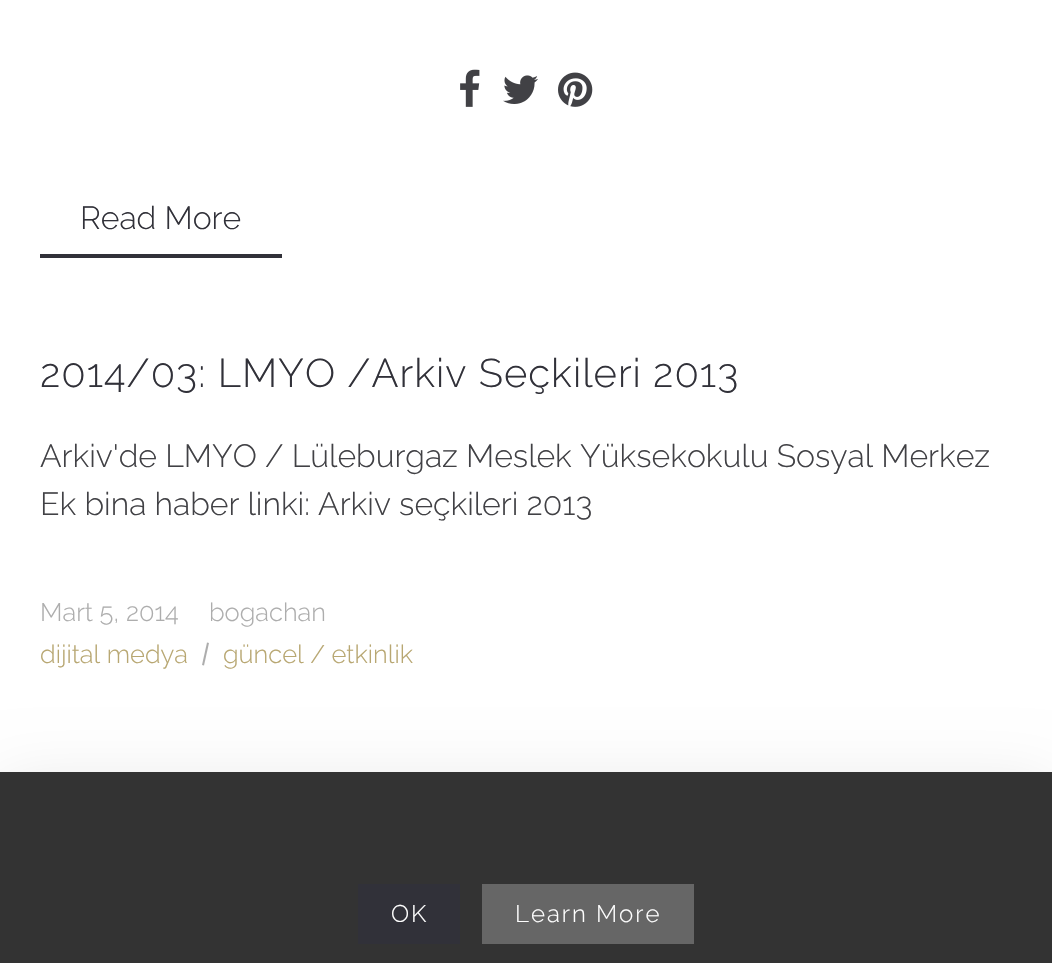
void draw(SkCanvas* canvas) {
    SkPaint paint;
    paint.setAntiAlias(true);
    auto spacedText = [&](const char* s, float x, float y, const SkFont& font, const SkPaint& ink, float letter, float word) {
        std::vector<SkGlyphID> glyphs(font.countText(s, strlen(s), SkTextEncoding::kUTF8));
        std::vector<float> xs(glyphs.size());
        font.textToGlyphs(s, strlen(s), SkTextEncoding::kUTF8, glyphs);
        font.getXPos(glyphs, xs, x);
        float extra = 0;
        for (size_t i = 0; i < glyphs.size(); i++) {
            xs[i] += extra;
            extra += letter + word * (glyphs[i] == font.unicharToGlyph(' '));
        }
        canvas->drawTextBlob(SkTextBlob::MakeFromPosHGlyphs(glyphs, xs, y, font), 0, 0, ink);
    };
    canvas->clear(0xFFFFFFFF);
    canvas->drawImageRect(SkImages::DeferredFromEncodedData(SkData::MakeFromFileName("img1.png")), SkRect::MakeXYWH(460, 69, 20, 38), SkSamplingOptions());
    canvas->drawImageRect(SkImages::DeferredFromEncodedData(SkData::MakeFromFileName("img2.png")), SkRect::MakeXYWH(503, 75, 35, 29), SkSamplingOptions());
    canvas->drawImageRect(SkImages::DeferredFromEncodedData(SkData::MakeFromFileName("img3.png")), SkRect::MakeXYWH(558, 72, 35, 35), SkSamplingOptions());
    SkFont font1(fontMgr->matchFamilyStyle("Raleway", SkFontStyle(300, SkFontStyle::kNormal_Width, SkFontStyle::kUpright_Slant)), 32);
    font1.setSubpixel(true);
    paint.setColor(0xFF313139);
    canvas->drawString("Read More", 80, 229, font1, paint);
    canvas->drawRect(SkRect::MakeXYWH(40, 254, 242, 4), paint);
    SkFont font2(fontMgr->matchFamilyStyle("Raleway", SkFontStyle(300, SkFontStyle::kNormal_Width, SkFontStyle::kUpright_Slant)), 40);
    font2.setSubpixel(true);
    spacedText("2014/03: LMYO /Arkiv Seçkileri 2013", 40, 387, font2, paint, 1, 0);
    paint.setColor(0xFF414145);
    canvas->drawString("Arkiv'de LMYO / Lüleburgaz Meslek Yüksekokulu Sosyal Merkez", 40, 467, font1, paint);
    canvas->drawString("Ek bina haber linki: Arkiv seçkileri 2013", 40, 515, font1, paint);
    SkFont font3(fontMgr->matchFamilyStyle("Raleway", SkFontStyle(300, SkFontStyle::kNormal_Width, SkFontStyle::kUpright_Slant)), 25.5f);
    font3.setSubpixel(true);
    paint.setColor(0xFFADADAD);
    canvas->drawString("Mart 5, 2014", 40, 621, font3, paint);
    canvas->drawString("bogachan", 209, 621, font3, paint);
    paint.setColor(0xFFB8A772);
    canvas->drawString("dijital medya", 40, 663, font3, paint);
    paint.setColor(0xFFADADAD);
    canvas->drawPath(SkPathBuilder().moveTo(207, 642.5f).lineTo(209, 643).lineTo(204, 665.5f).lineTo(202, 665).close().detach(), paint);
    paint.setColor(0xFFB8A772);
    canvas->drawString("güncel / etkinlik", 223, 663, font3, paint);
    paint.setColor(0x1A000000);
    paint.setMaskFilter(SkMaskFilter::MakeBlur(kNormal_SkBlurStyle, 33));
    canvas->drawRect(SkRect::MakeXYWH(0, 786, 1052, 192), paint);
    paint.setMaskFilter(nullptr);
    paint.setColor(0xFF333333);
    canvas->drawRect(SkRect::MakeXYWH(0, 772, 1052, 191), paint);
    paint.setColor(0xFF313139);
    canvas->drawRect(SkRect::MakeXYWH(358, 884, 102, 60), paint);
    SkFont font4(fontMgr->matchFamilyStyle("Raleway", SkFontStyle(300, SkFontStyle::kNormal_Width, SkFontStyle::kUpright_Slant)), 24);
    font4.setSubpixel(true);
    paint.setColor(0xFFFFFFFF);
    spacedText("OK", 391, 922, font4, paint, 2, 0);
    paint.setColor(0xFF666666);
    canvas->drawRect(SkRect::MakeXYWH(482, 884, 212, 60), paint);
    paint.setColor(0xFFFFFFFF);
    spacedText("Learn More", 515, 922, font4, paint, 2, 0);
}
